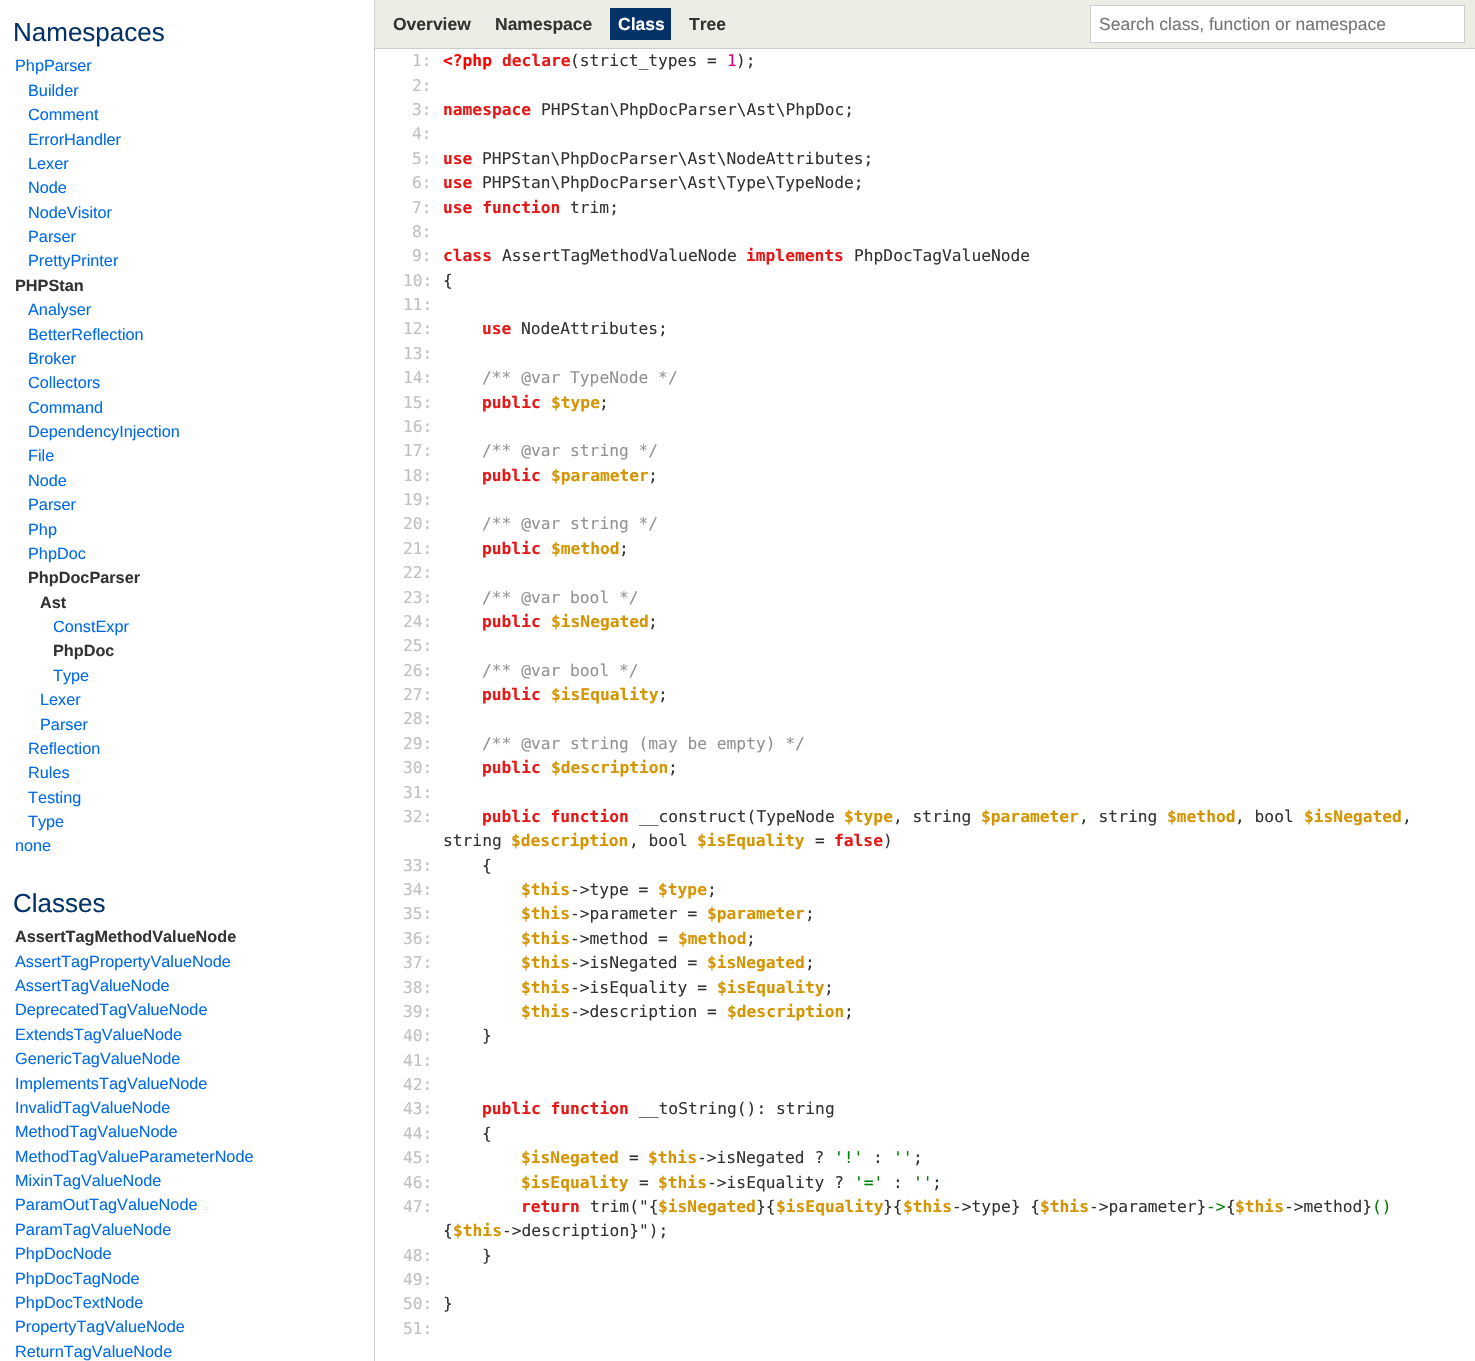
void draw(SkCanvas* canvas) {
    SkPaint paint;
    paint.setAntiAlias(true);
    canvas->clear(0xFFFFFFFF);
    paint.setColor(0xFFCCCCCC);
    canvas->drawRect(SkRect::MakeXYWH(374, 0, 1, 1361), paint);
    SkFont font1(fontMgr->matchFamilyStyle("Liberation Sans", SkFontStyle::Normal()), 26);
    font1.setSubpixel(true);
    paint.setColor(0xFF053368);
    canvas->drawString("Namespaces", 13, 41, font1, paint);
    SkFont font2(fontMgr->matchFamilyStyle("Liberation Sans", SkFontStyle::Normal()), 16.25f);
    font2.setSubpixel(true);
    paint.setColor(0xFF006AEB);
    canvas->drawString("PhpParser", 15, 71, font2, paint);
    canvas->drawString("Builder", 28, 96, font2, paint);
    canvas->drawString("Comment", 28, 120, font2, paint);
    canvas->drawString("ErrorHandler", 28, 145, font2, paint);
    canvas->drawString("Lexer", 28, 169, font2, paint);
    canvas->drawString("Node", 28, 193, font2, paint);
    canvas->drawString("NodeVisitor", 28, 218, font2, paint);
    canvas->drawString("Parser", 28, 242, font2, paint);
    canvas->drawString("PrettyPrinter", 28, 266, font2, paint);
    SkFont font3(fontMgr->matchFamilyStyle("Liberation Sans", SkFontStyle::Bold()), 16.25f);
    font3.setSubpixel(true);
    paint.setColor(0xFF333333);
    canvas->drawString("PHPStan", 15, 291, font3, paint);
    paint.setColor(0xFF006AEB);
    canvas->drawString("Analyser", 28, 315, font2, paint);
    canvas->drawString("BetterReflection", 28, 340, font2, paint);
    canvas->drawString("Broker", 28, 364, font2, paint);
    canvas->drawString("Collectors", 28, 388, font2, paint);
    canvas->drawString("Command", 28, 413, font2, paint);
    canvas->drawString("DependencyInjection", 28, 437, font2, paint);
    canvas->drawString("File", 28, 461, font2, paint);
    canvas->drawString("Node", 28, 486, font2, paint);
    canvas->drawString("Parser", 28, 510, font2, paint);
    canvas->drawString("Php", 28, 535, font2, paint);
    canvas->drawString("PhpDoc", 28, 559, font2, paint);
    paint.setColor(0xFF333333);
    canvas->drawString("PhpDocParser", 28, 583, font3, paint);
    canvas->drawString("Ast", 40, 608, font3, paint);
    paint.setColor(0xFF006AEB);
    canvas->drawString("ConstExpr", 53, 632, font2, paint);
    paint.setColor(0xFF333333);
    canvas->drawString("PhpDoc", 53, 656, font3, paint);
    paint.setColor(0xFF006AEB);
    canvas->drawString("Type", 53, 681, font2, paint);
    canvas->drawString("Lexer", 40, 705, font2, paint);
    canvas->drawString("Parser", 40, 730, font2, paint);
    canvas->drawString("Reflection", 28, 754, font2, paint);
    canvas->drawString("Rules", 28, 778, font2, paint);
    canvas->drawString("Testing", 28, 803, font2, paint);
    canvas->drawString("Type", 28, 827, font2, paint);
    canvas->drawString("none", 15, 851, font2, paint);
    paint.setColor(0xFF053368);
    canvas->drawString("Classes", 13, 912, font1, paint);
    paint.setColor(0xFF333333);
    canvas->drawString("AssertTagMethodValueNode", 15, 942, font3, paint);
    paint.setColor(0xFF006AEB);
    canvas->drawString("AssertTagPropertyValueNode", 15, 967, font2, paint);
    canvas->drawString("AssertTagValueNode", 15, 991, font2, paint);
    canvas->drawString("DeprecatedTagValueNode", 15, 1015, font2, paint);
    canvas->drawString("ExtendsTagValueNode", 15, 1040, font2, paint);
    canvas->drawString("GenericTagValueNode", 15, 1064, font2, paint);
    canvas->drawString("ImplementsTagValueNode", 15, 1089, font2, paint);
    canvas->drawString("InvalidTagValueNode", 15, 1113, font2, paint);
    canvas->drawString("MethodTagValueNode", 15, 1137, font2, paint);
    canvas->drawString("MethodTagValueParameterNode", 15, 1162, font2, paint);
    canvas->drawString("MixinTagValueNode", 15, 1186, font2, paint);
    canvas->drawString("ParamOutTagValueNode", 15, 1210, font2, paint);
    canvas->drawString("ParamTagValueNode", 15, 1235, font2, paint);
    canvas->drawString("PhpDocNode", 15, 1259, font2, paint);
    canvas->drawString("PhpDocTagNode", 15, 1284, font2, paint);
    canvas->drawString("PhpDocTextNode", 15, 1308, font2, paint);
    canvas->drawString("PropertyTagValueNode", 15, 1332, font2, paint);
    canvas->drawString("ReturnTagValueNode", 15, 1357, font2, paint);
    paint.setColor(0xFFECEDE5);
    canvas->drawRect(SkRect::MakeXYWH(375, 0, 1100, 48), paint);
    paint.setColor(0xFFCCCCCC);
    canvas->drawRect(SkRect::MakeXYWH(375, 48, 1100, 1), paint);
    SkFont font4(fontMgr->matchFamilyStyle("Liberation Sans", SkFontStyle::Bold()), 17.5f);
    font4.setSubpixel(true);
    paint.setColor(0xFF333333);
    canvas->drawString("Overview", 393, 30, font4, paint);
    canvas->drawString("Namespace", 495, 30, font4, paint);
    paint.setColor(0xFF053368);
    canvas->drawRect(SkRect::MakeXYWH(610, 8, 61, 32), paint);
    paint.setColor(0xFFFFFFFF);
    canvas->drawString("Class", 618, 30, font4, paint);
    paint.setColor(0xFF333333);
    canvas->drawString("Tree", 689, 30, font4, paint);
    paint.setColor(0xFFFFFFFF);
    canvas->drawRect(SkRect::MakeXYWH(1090.5f, 5.5f, 374, 37), paint);
    paint.setStyle(SkPaint::kStroke_Style);
    paint.setStrokeWidth(1);
    paint.setColor(0xFFCCCCCC);
    canvas->drawRect(SkRect::MakeXYWH(1090.5f, 5.5f, 374, 37), paint);
    SkFont font5(fontMgr->matchFamilyStyle("Liberation Sans", SkFontStyle::Normal()), 17.5f);
    font5.setSubpixel(true);
    paint.setStyle(SkPaint::kFill_Style);
    paint.setColor(0xFF757575);
    canvas->drawString("Search class, function or namespace", 1099, 30, font5, paint);
    SkFont font6(fontMgr->matchFamilyStyle("DejaVu Sans Mono", SkFontStyle::Normal()), 16.25f);
    font6.setSubpixel(true);
    paint.setColor(0xFFC0C0C0);
    canvas->drawString("1:", 412, 66, font6, paint);
    SkFont font7(fontMgr->matchFamilyStyle("DejaVu Sans Mono", SkFontStyle::Bold()), 16.25f);
    font7.setSubpixel(true);
    paint.setColor(0xFFFF0000);
    canvas->drawString("<?php", 443, 66, font7, paint);
    paint.setColor(0xFFE71818);
    canvas->drawString("declare", 502, 66, font7, paint);
    paint.setColor(0xFF333333);
    canvas->drawString("(strict_types =", 570, 66, font6, paint);
    paint.setColor(0xFFCD0673);
    canvas->drawString("1", 727, 66, font6, paint);
    paint.setColor(0xFF333333);
    canvas->drawString(");", 736, 66, font6, paint);
    paint.setColor(0xFFC0C0C0);
    canvas->drawString("2:", 412, 91, font6, paint);
    canvas->drawString("3:", 412, 115, font6, paint);
    paint.setColor(0xFFE71818);
    canvas->drawString("namespace", 443, 115, font7, paint);
    paint.setColor(0xFF333333);
    canvas->drawString("PHPStan\\PhpDocParser\\Ast\\PhpDoc;", 541, 115, font6, paint);
    paint.setColor(0xFFC0C0C0);
    canvas->drawString("4:", 412, 139, font6, paint);
    canvas->drawString("5:", 412, 164, font6, paint);
    paint.setColor(0xFFE71818);
    canvas->drawString("use", 443, 164, font7, paint);
    paint.setColor(0xFF333333);
    canvas->drawString("PHPStan\\PhpDocParser\\Ast\\NodeAttributes;", 482, 164, font6, paint);
    paint.setColor(0xFFC0C0C0);
    canvas->drawString("6:", 412, 188, font6, paint);
    paint.setColor(0xFFE71818);
    canvas->drawString("use", 443, 188, font7, paint);
    paint.setColor(0xFF333333);
    canvas->drawString("PHPStan\\PhpDocParser\\Ast\\Type\\TypeNode;", 482, 188, font6, paint);
    paint.setColor(0xFFC0C0C0);
    canvas->drawString("7:", 412, 213, font6, paint);
    paint.setColor(0xFFE71818);
    canvas->drawString("use function", 443, 213, font7, paint);
    paint.setColor(0xFF333333);
    canvas->drawString("trim;", 570, 213, font6, paint);
    paint.setColor(0xFFC0C0C0);
    canvas->drawString("8:", 412, 237, font6, paint);
    canvas->drawString("9:", 412, 261, font6, paint);
    paint.setColor(0xFFE71818);
    canvas->drawString("class", 443, 261, font7, paint);
    paint.setColor(0xFF333333);
    canvas->drawString("AssertTagMethodValueNode", 502, 261, font6, paint);
    paint.setColor(0xFFE71818);
    canvas->drawString("implements", 746, 261, font7, paint);
    paint.setColor(0xFF333333);
    canvas->drawString("PhpDocTagValueNode", 854, 261, font6, paint);
    paint.setColor(0xFFC0C0C0);
    canvas->drawString("10:", 403, 286, font6, paint);
    paint.setColor(0xFF333333);
    canvas->drawString("{", 443, 286, font6, paint);
    paint.setColor(0xFFC0C0C0);
    canvas->drawString("11:", 403, 310, font6, paint);
    canvas->drawString("12:", 403, 334, font6, paint);
    paint.setColor(0xFFE71818);
    canvas->drawString("use", 482, 334, font7, paint);
    paint.setColor(0xFF333333);
    canvas->drawString("NodeAttributes;", 521, 334, font6, paint);
    paint.setColor(0xFFC0C0C0);
    canvas->drawString("13:", 403, 359, font6, paint);
    canvas->drawString("14:", 403, 383, font6, paint);
    paint.setColor(0xFF929292);
    canvas->drawString("/** @var TypeNode */", 482, 383, font6, paint);
    paint.setColor(0xFFC0C0C0);
    canvas->drawString("15:", 403, 408, font6, paint);
    paint.setColor(0xFFE71818);
    canvas->drawString("public", 482, 408, font7, paint);
    paint.setColor(0xFFD59401);
    canvas->drawString("$type", 551, 408, font7, paint);
    paint.setColor(0xFF333333);
    canvas->drawString(";", 599, 408, font6, paint);
    paint.setColor(0xFFC0C0C0);
    canvas->drawString("16:", 403, 432, font6, paint);
    canvas->drawString("17:", 403, 456, font6, paint);
    paint.setColor(0xFF929292);
    canvas->drawString("/** @var string */", 482, 456, font6, paint);
    paint.setColor(0xFFC0C0C0);
    canvas->drawString("18:", 403, 481, font6, paint);
    paint.setColor(0xFFE71818);
    canvas->drawString("public", 482, 481, font7, paint);
    paint.setColor(0xFFD59401);
    canvas->drawString("$parameter", 551, 481, font7, paint);
    paint.setColor(0xFF333333);
    canvas->drawString(";", 648, 481, font6, paint);
    paint.setColor(0xFFC0C0C0);
    canvas->drawString("19:", 403, 505, font6, paint);
    canvas->drawString("20:", 403, 529, font6, paint);
    paint.setColor(0xFF929292);
    canvas->drawString("/** @var string */", 482, 529, font6, paint);
    paint.setColor(0xFFC0C0C0);
    canvas->drawString("21:", 403, 554, font6, paint);
    paint.setColor(0xFFE71818);
    canvas->drawString("public", 482, 554, font7, paint);
    paint.setColor(0xFFD59401);
    canvas->drawString("$method", 551, 554, font7, paint);
    paint.setColor(0xFF333333);
    canvas->drawString(";", 619, 554, font6, paint);
    paint.setColor(0xFFC0C0C0);
    canvas->drawString("22:", 403, 578, font6, paint);
    canvas->drawString("23:", 403, 603, font6, paint);
    paint.setColor(0xFF929292);
    canvas->drawString("/** @var bool */", 482, 603, font6, paint);
    paint.setColor(0xFFC0C0C0);
    canvas->drawString("24:", 403, 627, font6, paint);
    paint.setColor(0xFFE71818);
    canvas->drawString("public", 482, 627, font7, paint);
    paint.setColor(0xFFD59401);
    canvas->drawString("$isNegated", 551, 627, font7, paint);
    paint.setColor(0xFF333333);
    canvas->drawString(";", 648, 627, font6, paint);
    paint.setColor(0xFFC0C0C0);
    canvas->drawString("25:", 403, 651, font6, paint);
    canvas->drawString("26:", 403, 676, font6, paint);
    paint.setColor(0xFF929292);
    canvas->drawString("/** @var bool */", 482, 676, font6, paint);
    paint.setColor(0xFFC0C0C0);
    canvas->drawString("27:", 403, 700, font6, paint);
    paint.setColor(0xFFE71818);
    canvas->drawString("public", 482, 700, font7, paint);
    paint.setColor(0xFFD59401);
    canvas->drawString("$isEquality", 551, 700, font7, paint);
    paint.setColor(0xFF333333);
    canvas->drawString(";", 658, 700, font6, paint);
    paint.setColor(0xFFC0C0C0);
    canvas->drawString("28:", 403, 724, font6, paint);
    canvas->drawString("29:", 403, 749, font6, paint);
    paint.setColor(0xFF929292);
    canvas->drawString("/** @var string (may be empty) */", 482, 749, font6, paint);
    paint.setColor(0xFFC0C0C0);
    canvas->drawString("30:", 403, 773, font6, paint);
    paint.setColor(0xFFE71818);
    canvas->drawString("public", 482, 773, font7, paint);
    paint.setColor(0xFFD59401);
    canvas->drawString("$description", 551, 773, font7, paint);
    paint.setColor(0xFF333333);
    canvas->drawString(";", 668, 773, font6, paint);
    paint.setColor(0xFFC0C0C0);
    canvas->drawString("31:", 403, 798, font6, paint);
    canvas->drawString("32:", 403, 822, font6, paint);
    paint.setColor(0xFFE71818);
    canvas->drawString("public function", 482, 822, font7, paint);
    paint.setColor(0xFF333333);
    canvas->drawString("__construct(TypeNode", 639, 822, font6, paint);
    paint.setColor(0xFFD59401);
    canvas->drawString("$type", 844, 822, font7, paint);
    paint.setColor(0xFF333333);
    canvas->drawString(", string", 893, 822, font6, paint);
    paint.setColor(0xFFD59401);
    canvas->drawString("$parameter", 981, 822, font7, paint);
    paint.setColor(0xFF333333);
    canvas->drawString(", string", 1079, 822, font6, paint);
    paint.setColor(0xFFD59401);
    canvas->drawString("$method", 1167, 822, font7, paint);
    paint.setColor(0xFF333333);
    canvas->drawString(", bool", 1235, 822, font6, paint);
    paint.setColor(0xFFD59401);
    canvas->drawString("$isNegated", 1304, 822, font7, paint);
    paint.setColor(0xFF333333);
    canvas->drawString(",", 1402, 822, font6, paint);
    canvas->drawString("string", 443, 846, font6, paint);
    paint.setColor(0xFFD59401);
    canvas->drawString("$description", 511, 846, font7, paint);
    paint.setColor(0xFF333333);
    canvas->drawString(", bool", 629, 846, font6, paint);
    paint.setColor(0xFFD59401);
    canvas->drawString("$isEquality", 697, 846, font7, paint);
    paint.setColor(0xFF333333);
    canvas->drawString("=", 815, 846, font6, paint);
    paint.setColor(0xFFE71818);
    canvas->drawString("false", 834, 846, font7, paint);
    paint.setColor(0xFF333333);
    canvas->drawString(")", 883, 846, font6, paint);
    paint.setColor(0xFFC0C0C0);
    canvas->drawString("33:", 403, 871, font6, paint);
    paint.setColor(0xFF333333);
    canvas->drawString("{", 482, 871, font6, paint);
    paint.setColor(0xFFC0C0C0);
    canvas->drawString("34:", 403, 895, font6, paint);
    paint.setColor(0xFFD59401);
    canvas->drawString("$this", 521, 895, font7, paint);
    paint.setColor(0xFF333333);
    canvas->drawString("->type =", 570, 895, font6, paint);
    paint.setColor(0xFFD59401);
    canvas->drawString("$type", 658, 895, font7, paint);
    paint.setColor(0xFF333333);
    canvas->drawString(";", 707, 895, font6, paint);
    paint.setColor(0xFFC0C0C0);
    canvas->drawString("35:", 403, 919, font6, paint);
    paint.setColor(0xFFD59401);
    canvas->drawString("$this", 521, 919, font7, paint);
    paint.setColor(0xFF333333);
    canvas->drawString("->parameter =", 570, 919, font6, paint);
    paint.setColor(0xFFD59401);
    canvas->drawString("$parameter", 707, 919, font7, paint);
    paint.setColor(0xFF333333);
    canvas->drawString(";", 805, 919, font6, paint);
    paint.setColor(0xFFC0C0C0);
    canvas->drawString("36:", 403, 944, font6, paint);
    paint.setColor(0xFFD59401);
    canvas->drawString("$this", 521, 944, font7, paint);
    paint.setColor(0xFF333333);
    canvas->drawString("->method =", 570, 944, font6, paint);
    paint.setColor(0xFFD59401);
    canvas->drawString("$method", 678, 944, font7, paint);
    paint.setColor(0xFF333333);
    canvas->drawString(";", 746, 944, font6, paint);
    paint.setColor(0xFFC0C0C0);
    canvas->drawString("37:", 403, 968, font6, paint);
    paint.setColor(0xFFD59401);
    canvas->drawString("$this", 521, 968, font7, paint);
    paint.setColor(0xFF333333);
    canvas->drawString("->isNegated =", 570, 968, font6, paint);
    paint.setColor(0xFFD59401);
    canvas->drawString("$isNegated", 707, 968, font7, paint);
    paint.setColor(0xFF333333);
    canvas->drawString(";", 805, 968, font6, paint);
    paint.setColor(0xFFC0C0C0);
    canvas->drawString("38:", 403, 993, font6, paint);
    paint.setColor(0xFFD59401);
    canvas->drawString("$this", 521, 993, font7, paint);
    paint.setColor(0xFF333333);
    canvas->drawString("->isEquality =", 570, 993, font6, paint);
    paint.setColor(0xFFD59401);
    canvas->drawString("$isEquality", 717, 993, font7, paint);
    paint.setColor(0xFF333333);
    canvas->drawString(";", 824, 993, font6, paint);
    paint.setColor(0xFFC0C0C0);
    canvas->drawString("39:", 403, 1017, font6, paint);
    paint.setColor(0xFFD59401);
    canvas->drawString("$this", 521, 1017, font7, paint);
    paint.setColor(0xFF333333);
    canvas->drawString("->description =", 570, 1017, font6, paint);
    paint.setColor(0xFFD59401);
    canvas->drawString("$description", 727, 1017, font7, paint);
    paint.setColor(0xFF333333);
    canvas->drawString(";", 844, 1017, font6, paint);
    paint.setColor(0xFFC0C0C0);
    canvas->drawString("40:", 403, 1041, font6, paint);
    paint.setColor(0xFF333333);
    canvas->drawString("}", 482, 1041, font6, paint);
    paint.setColor(0xFFC0C0C0);
    canvas->drawString("41:", 403, 1066, font6, paint);
    canvas->drawString("42:", 403, 1090, font6, paint);
    canvas->drawString("43:", 403, 1114, font6, paint);
    paint.setColor(0xFFE71818);
    canvas->drawString("public function", 482, 1114, font7, paint);
    paint.setColor(0xFF333333);
    canvas->drawString("__toString(): string", 639, 1114, font6, paint);
    paint.setColor(0xFFC0C0C0);
    canvas->drawString("44:", 403, 1139, font6, paint);
    paint.setColor(0xFF333333);
    canvas->drawString("{", 482, 1139, font6, paint);
    paint.setColor(0xFFC0C0C0);
    canvas->drawString("45:", 403, 1163, font6, paint);
    paint.setColor(0xFFD59401);
    canvas->drawString("$isNegated", 521, 1163, font7, paint);
    canvas->drawString("$this", 648, 1163, font7, paint);
    paint.setColor(0xFF333333);
    canvas->drawString("->isNegated ?", 697, 1163, font6, paint);
    paint.setColor(0xFF008000);
    canvas->drawString("'!'", 834, 1163, font6, paint);
    canvas->drawString("''", 893, 1163, font6, paint);
    paint.setColor(0xFF333333);
    canvas->drawString("=", 629, 1163, font6, paint);
    canvas->drawString(":", 873, 1163, font6, paint);
    canvas->drawString(";", 913, 1163, font6, paint);
    paint.setColor(0xFFC0C0C0);
    canvas->drawString("46:", 403, 1188, font6, paint);
    paint.setColor(0xFFD59401);
    canvas->drawString("$isEquality", 521, 1188, font7, paint);
    canvas->drawString("$this", 658, 1188, font7, paint);
    paint.setColor(0xFF333333);
    canvas->drawString("->isEquality ?", 707, 1188, font6, paint);
    paint.setColor(0xFF008000);
    canvas->drawString("'='", 854, 1188, font6, paint);
    canvas->drawString("''", 913, 1188, font6, paint);
    paint.setColor(0xFF333333);
    canvas->drawString("=", 639, 1188, font6, paint);
    canvas->drawString(":", 893, 1188, font6, paint);
    canvas->drawString(";", 932, 1188, font6, paint);
    paint.setColor(0xFFC0C0C0);
    canvas->drawString("47:", 403, 1212, font6, paint);
    paint.setColor(0xFFE71818);
    canvas->drawString("return", 521, 1212, font7, paint);
    paint.setColor(0xFF333333);
    canvas->drawString("trim(\"{", 590, 1212, font6, paint);
    paint.setColor(0xFFD59401);
    canvas->drawString("$isNegated", 658, 1212, font7, paint);
    paint.setColor(0xFF333333);
    canvas->drawString("}{", 756, 1212, font6, paint);
    paint.setColor(0xFFD59401);
    canvas->drawString("$isEquality", 776, 1212, font7, paint);
    paint.setColor(0xFF333333);
    canvas->drawString("}{", 883, 1212, font6, paint);
    paint.setColor(0xFFD59401);
    canvas->drawString("$this", 903, 1212, font7, paint);
    paint.setColor(0xFF333333);
    canvas->drawString("->type} {", 952, 1212, font6, paint);
    paint.setColor(0xFFD59401);
    canvas->drawString("$this", 1040, 1212, font7, paint);
    paint.setColor(0xFF333333);
    canvas->drawString("->parameter}", 1089, 1212, font6, paint);
    paint.setColor(0xFF008000);
    canvas->drawString("->", 1206, 1212, font6, paint);
    paint.setColor(0xFF333333);
    canvas->drawString("{", 1226, 1212, font6, paint);
    paint.setColor(0xFFD59401);
    canvas->drawString("$this", 1235, 1212, font7, paint);
    paint.setColor(0xFF333333);
    canvas->drawString("->method}", 1284, 1212, font6, paint);
    paint.setColor(0xFF008000);
    canvas->drawString("()", 1372, 1212, font6, paint);
    paint.setColor(0xFF333333);
    canvas->drawString("{", 443, 1236, font6, paint);
    paint.setColor(0xFFD59401);
    canvas->drawString("$this", 453, 1236, font7, paint);
    paint.setColor(0xFF333333);
    canvas->drawString("->description}\");", 502, 1236, font6, paint);
    paint.setColor(0xFFC0C0C0);
    canvas->drawString("48:", 403, 1261, font6, paint);
    paint.setColor(0xFF333333);
    canvas->drawString("}", 482, 1261, font6, paint);
    paint.setColor(0xFFC0C0C0);
    canvas->drawString("49:", 403, 1285, font6, paint);
    canvas->drawString("50:", 403, 1309, font6, paint);
    paint.setColor(0xFF333333);
    canvas->drawString("}", 443, 1309, font6, paint);
    paint.setColor(0xFFC0C0C0);
    canvas->drawString("51:", 403, 1334, font6, paint);
}
